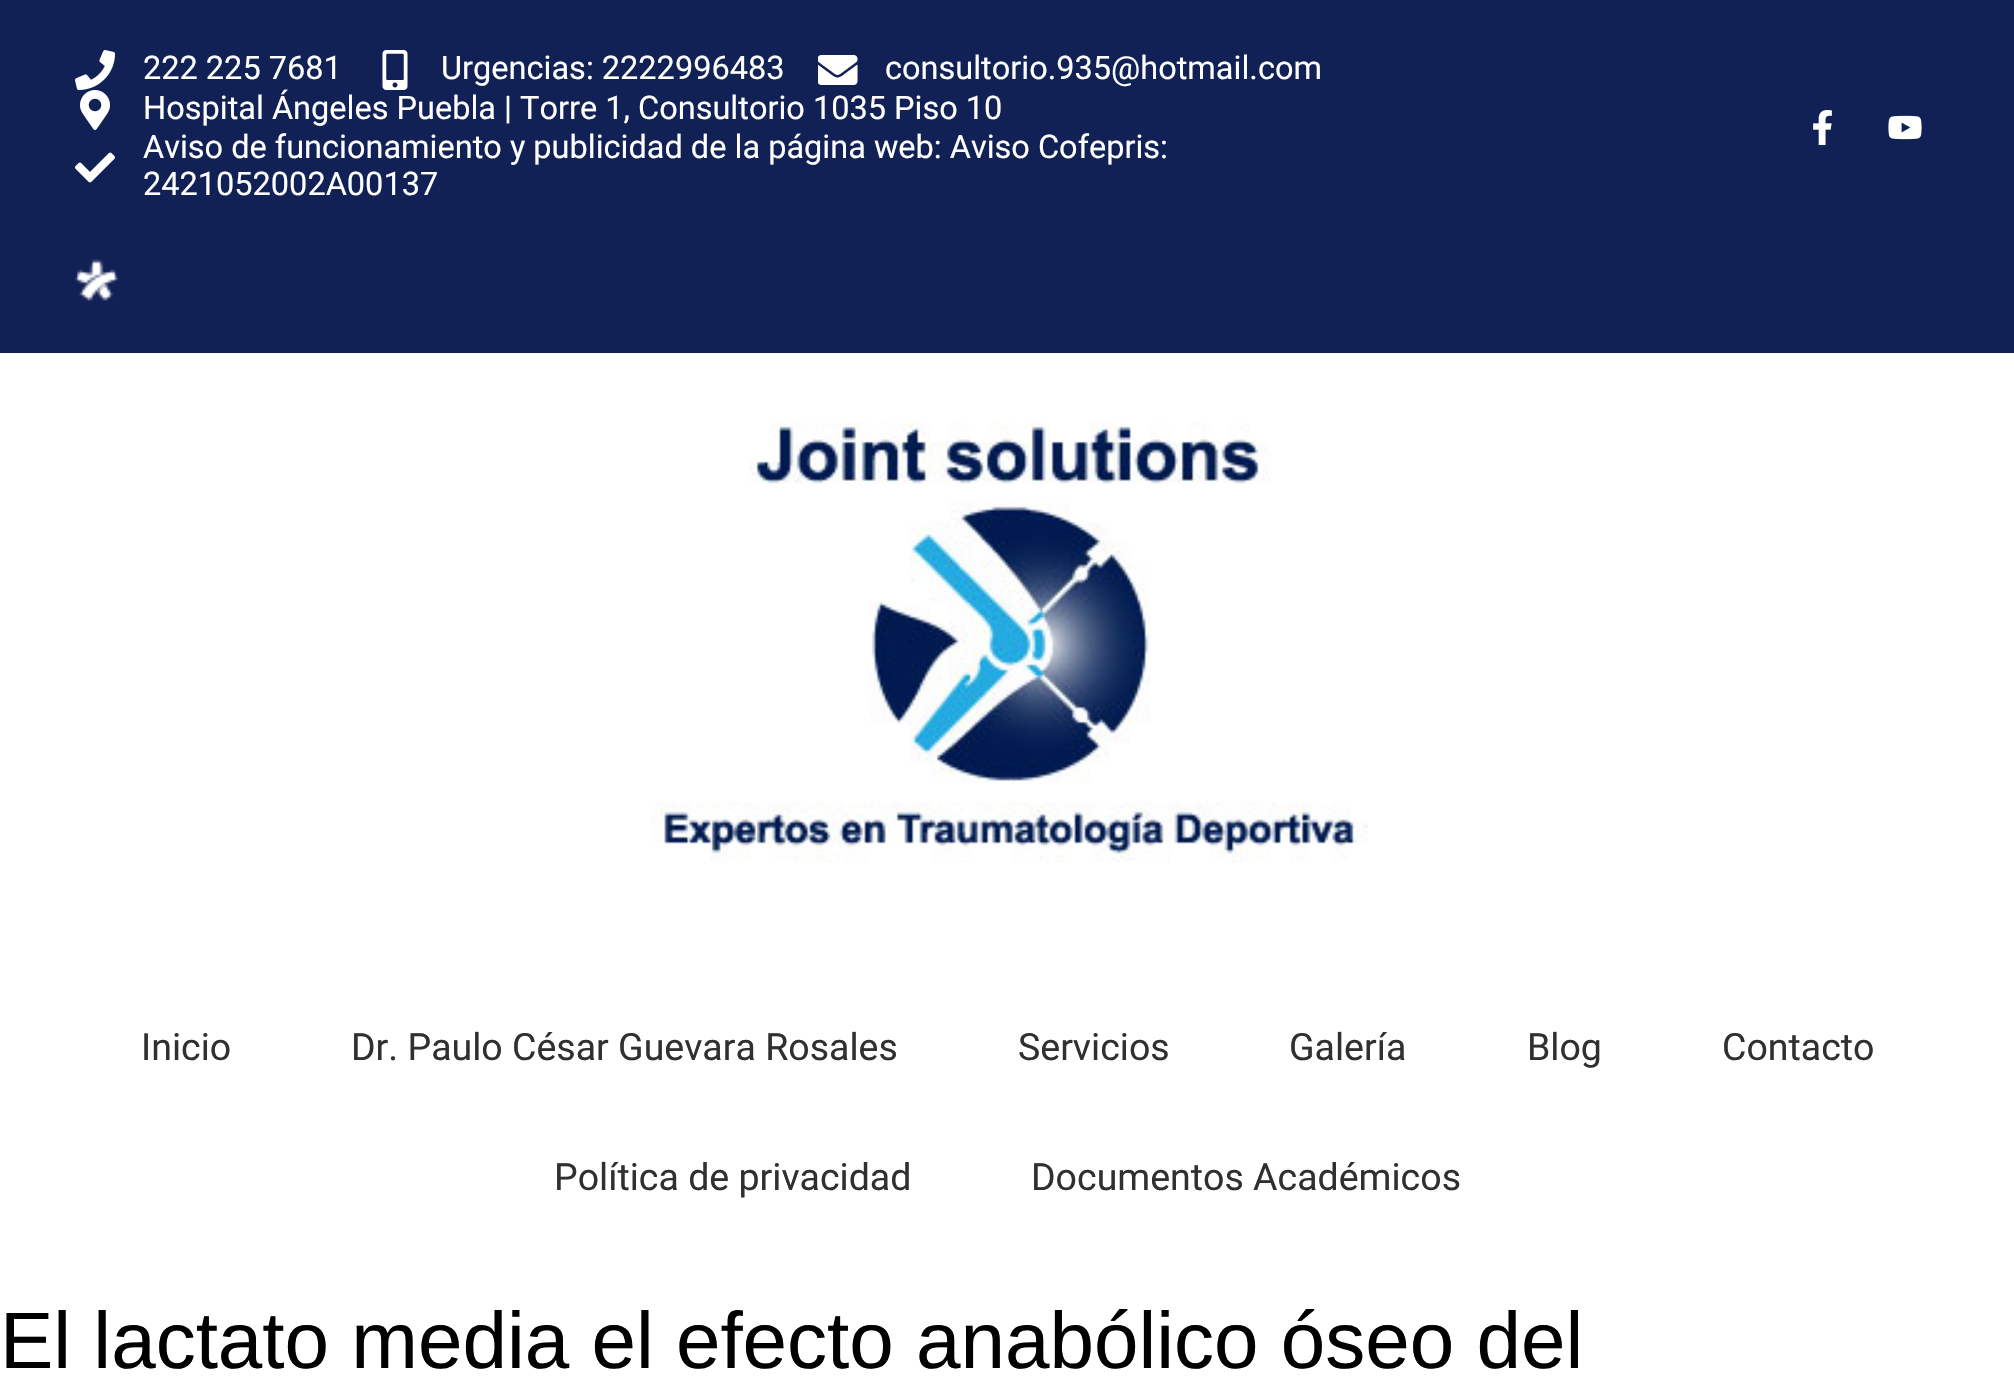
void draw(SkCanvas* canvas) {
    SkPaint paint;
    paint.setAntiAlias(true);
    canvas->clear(0xFFFFFFFF);
    paint.setColor(0xFF112155);
    canvas->drawRect(SkRect::MakeXYWH(0, 0, 2014, 353), paint);
    canvas->drawImageRect(SkImages::DeferredFromEncodedData(SkData::MakeFromFileName("img1.png")), SkRect::MakeXYWH(75, 50, 40, 40), SkSamplingOptions());
    SkFont font1(fontMgr->matchFamilyStyle("Roboto", SkFontStyle::Normal()), 32.5f);
    font1.setSubpixel(true);
    paint.setColor(0xFFFFFFFF);
    canvas->drawString("222 225 7681", 143, 79, font1, paint);
    canvas->drawImageRect(SkImages::DeferredFromEncodedData(SkData::MakeFromFileName("img2.png")), SkRect::MakeXYWH(382, 50, 26, 40), SkSamplingOptions());
    canvas->drawString("Urgencias: 2222996483", 441, 79, font1, paint);
    canvas->drawImageRect(SkImages::DeferredFromEncodedData(SkData::MakeFromFileName("img3.png")), SkRect::MakeXYWH(818, 55, 40, 30), SkSamplingOptions());
    canvas->drawString("consultorio.935@hotmail.com", 885, 79, font1, paint);
    canvas->drawImageRect(SkImages::DeferredFromEncodedData(SkData::MakeFromFileName("img4.png")), SkRect::MakeXYWH(80, 90, 30, 40), SkSamplingOptions());
    canvas->drawString("Hospital Ángeles Puebla | Torre 1, Consultorio 1035 Piso 10", 143, 119, font1, paint);
    canvas->drawImageRect(SkImages::DeferredFromEncodedData(SkData::MakeFromFileName("img5.png")), SkRect::MakeXYWH(75, 152, 40, 31), SkSamplingOptions());
    canvas->drawString("Aviso de funcionamiento y publicidad de la página web: Aviso Cofepris:", 143, 158, font1, paint);
    canvas->drawString("2421052002A00137", 143, 195, font1, paint);
    canvas->drawImageRect(SkImages::DeferredFromEncodedData(SkData::MakeFromFileName("img6.png")), SkRect::MakeXYWH(1813, 110, 19, 35), SkSamplingOptions());
    canvas->drawImageRect(SkImages::DeferredFromEncodedData(SkData::MakeFromFileName("img7.png")), SkRect::MakeXYWH(1888, 115, 34, 25), SkSamplingOptions());
    canvas->drawImageRect(SkImages::DeferredFromEncodedData(SkData::MakeFromFileName("img8.png")), SkRect::MakeXYWH(75, 259, 43, 42), SkSamplingOptions());
    canvas->drawImageRect(SkImages::DeferredFromEncodedData(SkData::MakeFromFileName("img9.png")), SkRect::MakeXYWH(650, 422, 718, 441), SkSamplingOptions());
    SkFont font2(fontMgr->matchFamilyStyle("Roboto", SkFontStyle::Normal()), 37.5f);
    font2.setSubpixel(true);
    paint.setColor(0xFF303030);
    canvas->drawString("Inicio", 141, 1060, font2, paint);
    canvas->drawString("Dr. Paulo César Guevara Rosales", 351, 1060, font2, paint);
    canvas->drawString("Servicios", 1018, 1060, font2, paint);
    canvas->drawString("Galería", 1289, 1060, font2, paint);
    canvas->drawString("Blog", 1527, 1060, font2, paint);
    canvas->drawString("Contacto", 1722, 1060, font2, paint);
    canvas->drawString("Política de privacidad", 554, 1190, font2, paint);
    canvas->drawString("Documentos Académicos", 1031, 1190, font2, paint);
    SkFont font3(fontMgr->matchFamilyStyle("Liberation Sans", SkFontStyle::Normal()), 80);
    font3.setSubpixel(true);
    paint.setColor(0xFF000000);
    canvas->drawString("El lactato media el efecto anabólico óseo del", 0, 1368, font3, paint);
}
